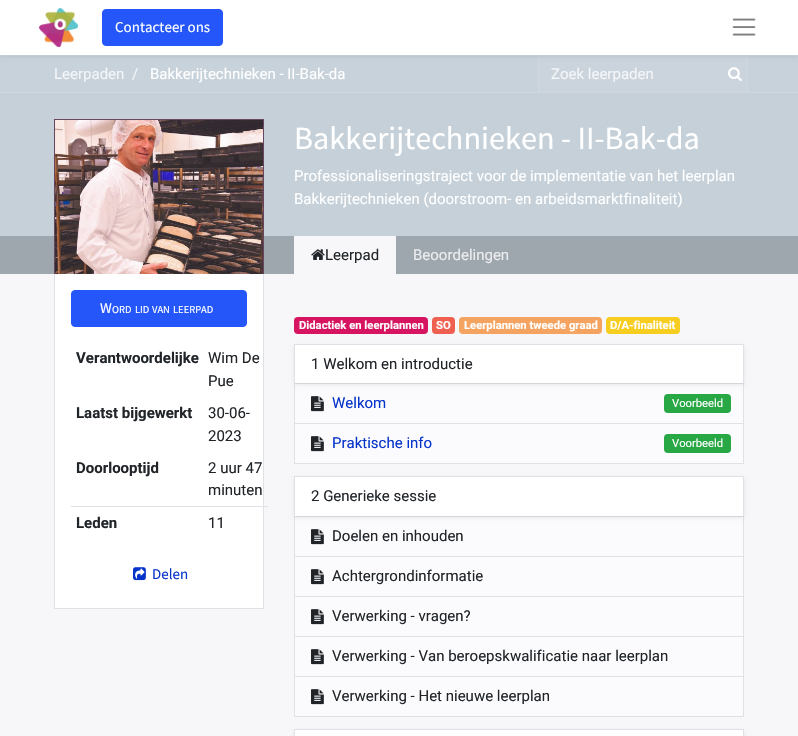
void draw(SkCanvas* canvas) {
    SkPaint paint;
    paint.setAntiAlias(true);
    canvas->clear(0xFFF7F7FA);
    paint.setColor(0xFFC8D2DB);
    canvas->drawRect(SkRect::MakeXYWH(0, 56, 798, 36), paint);
    paint.setColor(0xFFCED7DF);
    canvas->drawRect(SkRect::MakeXYWH(0, 55, 798, 1), paint);
    paint.setColor(0xFFCBD4DD);
    canvas->drawRect(SkRect::MakeXYWH(539, 56, 208, 36), paint);
    paint.setColor(0xFFD0D8E0);
    canvas->drawRect(SkRect::MakeXYWH(747, 56, 1, 36), paint);
    canvas->drawRect(SkRect::MakeXYWH(538, 56, 1, 36), paint);
    paint.setColor(0x12000000);
    paint.setMaskFilter(SkMaskFilter::MakeBlur(kNormal_SkBlurStyle, 2));
    canvas->drawRect(SkRect::MakeXYWH(0, 2, 798, 55), paint);
    paint.setMaskFilter(nullptr);
    paint.setColor(0xFFFFFFFF);
    canvas->drawRect(SkRect::MakeXYWH(0, 0, 798, 55), paint);
    canvas->drawImageRect(SkImages::DeferredFromEncodedData(SkData::MakeFromFileName("img1.png")), SkRect::MakeXYWH(39, 8, 39, 39), SkSamplingOptions());
    paint.setColor(0xFF2456F9);
    canvas->drawRoundRect(SkRect::MakeXYWH(102.5f, 9.5f, 120, 36), 3.5f, 3.5f, paint);
    paint.setStyle(SkPaint::kStroke_Style);
    paint.setStrokeWidth(1);
    canvas->drawRoundRect(SkRect::MakeXYWH(102.5f, 9.5f, 120, 36), 3.5f, 3.5f, paint);
    SkFont font1(fontMgr->matchFamilyStyle("Source Sans Pro", SkFontStyle::Normal()), 15);
    font1.setSubpixel(true);
    paint.setStyle(SkPaint::kFill_Style);
    paint.setColor(0xFFFFFFFF);
    canvas->drawString("Contacteer ons", 115, 32, font1, paint);
    canvas->drawImageRect(SkImages::DeferredFromEncodedData(SkData::MakeFromFileName("img2.png")), SkRect::MakeXYWH(732, 18, 24, 18), SkSamplingOptions());
    paint.setColor(0xFFC5D0D9);
    canvas->drawRect(SkRect::MakeXYWH(0, 93, 798, 143), paint);
    paint.setColor(0xFFCED7DF);
    canvas->drawRect(SkRect::MakeXYWH(0, 92, 798, 1), paint);
    SkFont font2(fontMgr->matchFamilyStyle("Roboto", SkFontStyle::Normal()), 15);
    font2.setSubpixel(true);
    paint.setColor(0xFFF4F6F8);
    canvas->drawString("Leerpaden", 54, 79, font2, paint);
    canvas->drawString("/", 132, 79, font2, paint);
    paint.setColor(0xFFFFFFFF);
    canvas->drawString("Bakkerijtechnieken - II-Bak-da", 150, 79, font2, paint);
    paint.setColor(0xFFF4F6F8);
    canvas->drawString("Zoek leerpaden", 551, 79, font2, paint);
    canvas->drawImageRect(SkImages::DeferredFromEncodedData(SkData::MakeFromFileName("img3.png")), SkRect::MakeXYWH(728, 67, 14, 14), SkSamplingOptions());
    paint.setColor(0xFF68465F);
    canvas->drawRect(SkRect::MakeXYWH(54, 119, 210, 1), paint);
    paint.setColor(0xFF9EA6AE);
    canvas->drawRect(SkRect::MakeXYWH(0, 236, 798, 38), paint);
    paint.setColor(0xFF68465F);
    canvas->drawRect(SkRect::MakeXYWH(263, 119, 1, 155), paint);
    canvas->drawRect(SkRect::MakeXYWH(54, 119, 1, 155), paint);
    canvas->drawImageRect(SkImages::DeferredFromEncodedData(SkData::MakeFromFileName("img4.png")), SkRect::MakeXYWH(55, 120, 208, 154), SkSamplingOptions());
    SkFont font3(fontMgr->matchFamilyStyle("Source Sans Pro", SkFontStyle::Normal()), 32.25f);
    font3.setSubpixel(true);
    paint.setColor(0xFFFFFFFF);
    canvas->drawString("Bakkerijtechnieken - II-Bak-da", 294, 149, font3, paint);
    canvas->drawString("Professionaliseringstraject voor de implementatie van het leerplan", 294, 181, font2, paint);
    canvas->drawString("Bakkerijtechnieken (doorstroom- en arbeidsmarktfinaliteit)", 294, 204, font2, paint);
    canvas->drawRect(SkRect::MakeXYWH(55, 274, 208, 334), paint);
    paint.setColor(0xFFDEE2E6);
    canvas->drawRect(SkRect::MakeXYWH(263, 274, 1, 335), paint);
    canvas->drawRect(SkRect::MakeXYWH(54, 608, 210, 1), paint);
    canvas->drawRect(SkRect::MakeXYWH(54, 274, 1, 335), paint);
    paint.setColor(0xFF2456F9);
    canvas->drawRoundRect(SkRect::MakeXYWH(71.5f, 290.5f, 175, 36), 3.5f, 3.5f, paint);
    paint.setStyle(SkPaint::kStroke_Style);
    canvas->drawRoundRect(SkRect::MakeXYWH(71.5f, 290.5f, 175, 36), 3.5f, 3.5f, paint);
    paint.setStyle(SkPaint::kFill_Style);
    paint.setColor(0xFFFFFFFF);
    canvas->drawString("W", 100, 313, font1, paint);
    SkFont font4(fontMgr->matchFamilyStyle("Source Sans Pro", SkFontStyle::Normal()), 10.5f);
    font4.setSubpixel(true);
    canvas->drawString("ORD", 112, 313, font4, paint);
    canvas->drawString("LID", 135, 313, font4, paint);
    canvas->drawString("VAN", 152, 313, font4, paint);
    canvas->drawString("LEERPAD", 173, 313, font4, paint);
    SkFont font5(fontMgr->matchFamilyStyle("Roboto", SkFontStyle::Bold()), 15);
    font5.setSubpixel(true);
    paint.setColor(0xFF212529);
    canvas->drawString("Verantwoordelijke", 76, 363, font5, paint);
    canvas->drawString("Wim De", 208, 363, font2, paint);
    canvas->drawString("Pue", 208, 386, font2, paint);
    canvas->drawString("Laatst bijgewerkt", 76, 418, font5, paint);
    canvas->drawString("30-06-", 208, 418, font2, paint);
    canvas->drawString("2023", 208, 441, font2, paint);
    canvas->drawString("Doorlooptijd", 76, 473, font5, paint);
    canvas->drawString("2 uur 47", 208, 473, font2, paint);
    canvas->drawString("minuten", 208, 495, font2, paint);
    canvas->drawString("Leden", 76, 528, font5, paint);
    paint.setColor(0xFFDEE2E6);
    canvas->drawRect(SkRect::MakeXYWH(71, 506, 197, 1), paint);
    paint.setColor(0xFF212529);
    canvas->drawString("11", 208, 528, font2, paint);
    canvas->drawImageRect(SkImages::DeferredFromEncodedData(SkData::MakeFromFileName("img5.png")), SkRect::MakeXYWH(133, 567, 13, 14), SkSamplingOptions());
    paint.setColor(0xFF0634CB);
    canvas->drawString("Delen", 152, 579, font1, paint);
    paint.setColor(0xFFF7F7FA);
    canvas->drawRect(SkRect::MakeXYWH(294, 236, 102, 38), paint);
    canvas->drawImageRect(SkImages::DeferredFromEncodedData(SkData::MakeFromFileName("img6.png")), SkRect::MakeXYWH(311, 249, 14, 11), SkSamplingOptions());
    paint.setColor(0xFF212529);
    canvas->drawString("Leerpad", 325, 260, font2, paint);
    paint.setColor(0xFFECEDEF);
    canvas->drawString("Beoordelingen", 413, 260, font2, paint);
    paint.setColor(0xFFD6145F);
    canvas->drawRoundRect(SkRect::MakeXYWH(294, 317, 134, 17), 4, 4, paint);
    SkFont font6(fontMgr->matchFamilyStyle("Roboto", SkFontStyle::Bold()), 11.25f);
    font6.setSubpixel(true);
    paint.setColor(0xFFFFFFFF);
    canvas->drawString("Didactiek en leerplannen", 299, 329, font6, paint);
    paint.setColor(0xFFF06050);
    canvas->drawRoundRect(SkRect::MakeXYWH(432, 317, 23, 17), 4, 4, paint);
    paint.setColor(0xFFFFFFFF);
    canvas->drawString("SO", 436, 329, font6, paint);
    paint.setColor(0xFFF4A460);
    canvas->drawRoundRect(SkRect::MakeXYWH(459, 317, 143, 17), 4, 4, paint);
    paint.setColor(0xFFFFFFFF);
    canvas->drawString("Leerplannen tweede graad", 464, 329, font6, paint);
    paint.setColor(0xFFF7CD1F);
    canvas->drawRoundRect(SkRect::MakeXYWH(606, 317, 74, 17), 4, 4, paint);
    paint.setColor(0xFFFFFFFF);
    canvas->drawString("D/A-finaliteit", 610, 329, font6, paint);
    paint.setColor(0xFFDEE2E6);
    canvas->drawRect(SkRect::MakeXYWH(294, 383, 450, 1), paint);
    paint.setColor(0xFFFBFBFD);
    canvas->drawRect(SkRect::MakeXYWH(295, 384, 448, 39), paint);
    paint.setColor(0xFFDEE2E6);
    canvas->drawRect(SkRect::MakeXYWH(743, 384, 1, 80), paint);
    canvas->drawRect(SkRect::MakeXYWH(294, 423, 450, 1), paint);
    canvas->drawRect(SkRect::MakeXYWH(294, 384, 1, 40), paint);
    paint.setColor(0x12000000);
    paint.setMaskFilter(SkMaskFilter::MakeBlur(kNormal_SkBlurStyle, 2));
    canvas->drawRect(SkRect::MakeXYWH(294, 346, 450, 39), paint);
    paint.setMaskFilter(nullptr);
    paint.setColor(0xFFFFFFFF);
    canvas->drawRect(SkRect::MakeXYWH(295, 345, 448, 38), paint);
    paint.setColor(0xFFDEE2E6);
    canvas->drawRect(SkRect::MakeXYWH(294, 344, 450, 1), paint);
    canvas->drawRect(SkRect::MakeXYWH(743, 344, 1, 39), paint);
    canvas->drawRect(SkRect::MakeXYWH(294, 344, 1, 39), paint);
    paint.setColor(0xFF212529);
    canvas->drawString("1 Welkom en introductie", 311, 369, font2, paint);
    canvas->drawImageRect(SkImages::DeferredFromEncodedData(SkData::MakeFromFileName("img7.png")), SkRect::MakeXYWH(311, 396, 13, 16), SkSamplingOptions());
    paint.setColor(0xFF0634CB);
    canvas->drawString("Welkom", 332, 408, font2, paint);
    paint.setColor(0xFF28A745);
    canvas->drawRoundRect(SkRect::MakeXYWH(664, 394, 67, 19), 4, 4, paint);
    SkFont font7(fontMgr->matchFamilyStyle("Roboto", SkFontStyle::Normal()), 11.25f);
    font7.setSubpixel(true);
    paint.setColor(0xFFFFFFFF);
    canvas->drawString("Voorbeeld", 672, 407, font7, paint);
    paint.setColor(0xFFFBFBFD);
    canvas->drawRect(SkRect::MakeXYWH(295, 424, 448, 39), paint);
    paint.setColor(0xFFDEE2E6);
    canvas->drawRect(SkRect::MakeXYWH(294, 463, 450, 1), paint);
    canvas->drawRect(SkRect::MakeXYWH(294, 424, 1, 40), paint);
    canvas->drawImageRect(SkImages::DeferredFromEncodedData(SkData::MakeFromFileName("img7.png")), SkRect::MakeXYWH(311, 436, 13, 16), SkSamplingOptions());
    paint.setColor(0xFF0634CB);
    canvas->drawString("Praktische info", 332, 448, font2, paint);
    paint.setColor(0xFF28A745);
    canvas->drawRoundRect(SkRect::MakeXYWH(664, 434, 67, 19), 4, 4, paint);
    paint.setColor(0xFFFFFFFF);
    canvas->drawString("Voorbeeld", 672, 447, font7, paint);
    paint.setColor(0xFFDEE2E6);
    canvas->drawRect(SkRect::MakeXYWH(294, 516, 450, 1), paint);
    paint.setColor(0xFFFBFBFD);
    canvas->drawRect(SkRect::MakeXYWH(295, 517, 448, 39), paint);
    paint.setColor(0xFFDEE2E6);
    canvas->drawRect(SkRect::MakeXYWH(743, 517, 1, 200), paint);
    canvas->drawRect(SkRect::MakeXYWH(294, 556, 450, 1), paint);
    canvas->drawRect(SkRect::MakeXYWH(294, 517, 1, 40), paint);
    paint.setColor(0x12000000);
    paint.setMaskFilter(SkMaskFilter::MakeBlur(kNormal_SkBlurStyle, 2));
    canvas->drawRect(SkRect::MakeXYWH(294, 478, 450, 40), paint);
    paint.setMaskFilter(nullptr);
    paint.setColor(0xFFFFFFFF);
    canvas->drawRect(SkRect::MakeXYWH(295, 477, 448, 39), paint);
    paint.setColor(0xFFDEE2E6);
    canvas->drawRect(SkRect::MakeXYWH(294, 476, 450, 1), paint);
    canvas->drawRect(SkRect::MakeXYWH(743, 476, 1, 40), paint);
    canvas->drawRect(SkRect::MakeXYWH(294, 476, 1, 40), paint);
    paint.setColor(0xFF212529);
    canvas->drawString("2 Generieke sessie", 311, 501, font2, paint);
    canvas->drawImageRect(SkImages::DeferredFromEncodedData(SkData::MakeFromFileName("img7.png")), SkRect::MakeXYWH(311, 529, 13, 16), SkSamplingOptions());
    canvas->drawString("Doelen en inhouden", 332, 541, font2, paint);
    paint.setColor(0xFFFBFBFD);
    canvas->drawRect(SkRect::MakeXYWH(295, 557, 448, 39), paint);
    paint.setColor(0xFFDEE2E6);
    canvas->drawRect(SkRect::MakeXYWH(294, 596, 450, 1), paint);
    canvas->drawRect(SkRect::MakeXYWH(294, 557, 1, 40), paint);
    canvas->drawImageRect(SkImages::DeferredFromEncodedData(SkData::MakeFromFileName("img7.png")), SkRect::MakeXYWH(311, 569, 13, 16), SkSamplingOptions());
    paint.setColor(0xFF212529);
    canvas->drawString("Achtergrondinformatie", 332, 581, font2, paint);
    paint.setColor(0xFFFBFBFD);
    canvas->drawRect(SkRect::MakeXYWH(295, 597, 448, 39), paint);
    paint.setColor(0xFFDEE2E6);
    canvas->drawRect(SkRect::MakeXYWH(294, 636, 450, 1), paint);
    canvas->drawRect(SkRect::MakeXYWH(294, 597, 1, 40), paint);
    canvas->drawImageRect(SkImages::DeferredFromEncodedData(SkData::MakeFromFileName("img7.png")), SkRect::MakeXYWH(311, 609, 13, 16), SkSamplingOptions());
    paint.setColor(0xFF212529);
    canvas->drawString("Verwerking - vragen?", 332, 621, font2, paint);
    paint.setColor(0xFFFBFBFD);
    canvas->drawRect(SkRect::MakeXYWH(295, 637, 448, 39), paint);
    paint.setColor(0xFFDEE2E6);
    canvas->drawRect(SkRect::MakeXYWH(294, 676, 450, 1), paint);
    canvas->drawRect(SkRect::MakeXYWH(294, 637, 1, 40), paint);
    canvas->drawImageRect(SkImages::DeferredFromEncodedData(SkData::MakeFromFileName("img7.png")), SkRect::MakeXYWH(311, 649, 13, 16), SkSamplingOptions());
    paint.setColor(0xFF212529);
    canvas->drawString("Verwerking - Van beroepskwalificatie naar leerplan", 332, 661, font2, paint);
    paint.setColor(0xFFFBFBFD);
    canvas->drawRect(SkRect::MakeXYWH(295, 677, 448, 39), paint);
    paint.setColor(0xFFDEE2E6);
    canvas->drawRect(SkRect::MakeXYWH(294, 716, 450, 1), paint);
    canvas->drawRect(SkRect::MakeXYWH(294, 677, 1, 40), paint);
    canvas->drawImageRect(SkImages::DeferredFromEncodedData(SkData::MakeFromFileName("img7.png")), SkRect::MakeXYWH(311, 689, 13, 16), SkSamplingOptions());
    paint.setColor(0xFF212529);
    canvas->drawString("Verwerking - Het nieuwe leerplan", 332, 701, font2, paint);
    paint.setColor(0x12000000);
    paint.setMaskFilter(SkMaskFilter::MakeBlur(kNormal_SkBlurStyle, 2));
    canvas->drawRect(SkRect::MakeXYWH(294, 731, 450, 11), paint);
    paint.setMaskFilter(nullptr);
    paint.setColor(0xFFFFFFFF);
    canvas->drawRect(SkRect::MakeXYWH(294, 730, 450, 6), paint);
    paint.setColor(0xFFDEE2E6);
    canvas->drawRect(SkRect::MakeXYWH(294, 729, 450, 1), paint);
    canvas->drawRect(SkRect::MakeXYWH(743, 729, 1, 7), paint);
    canvas->drawRect(SkRect::MakeXYWH(294, 729, 1, 7), paint);
}
